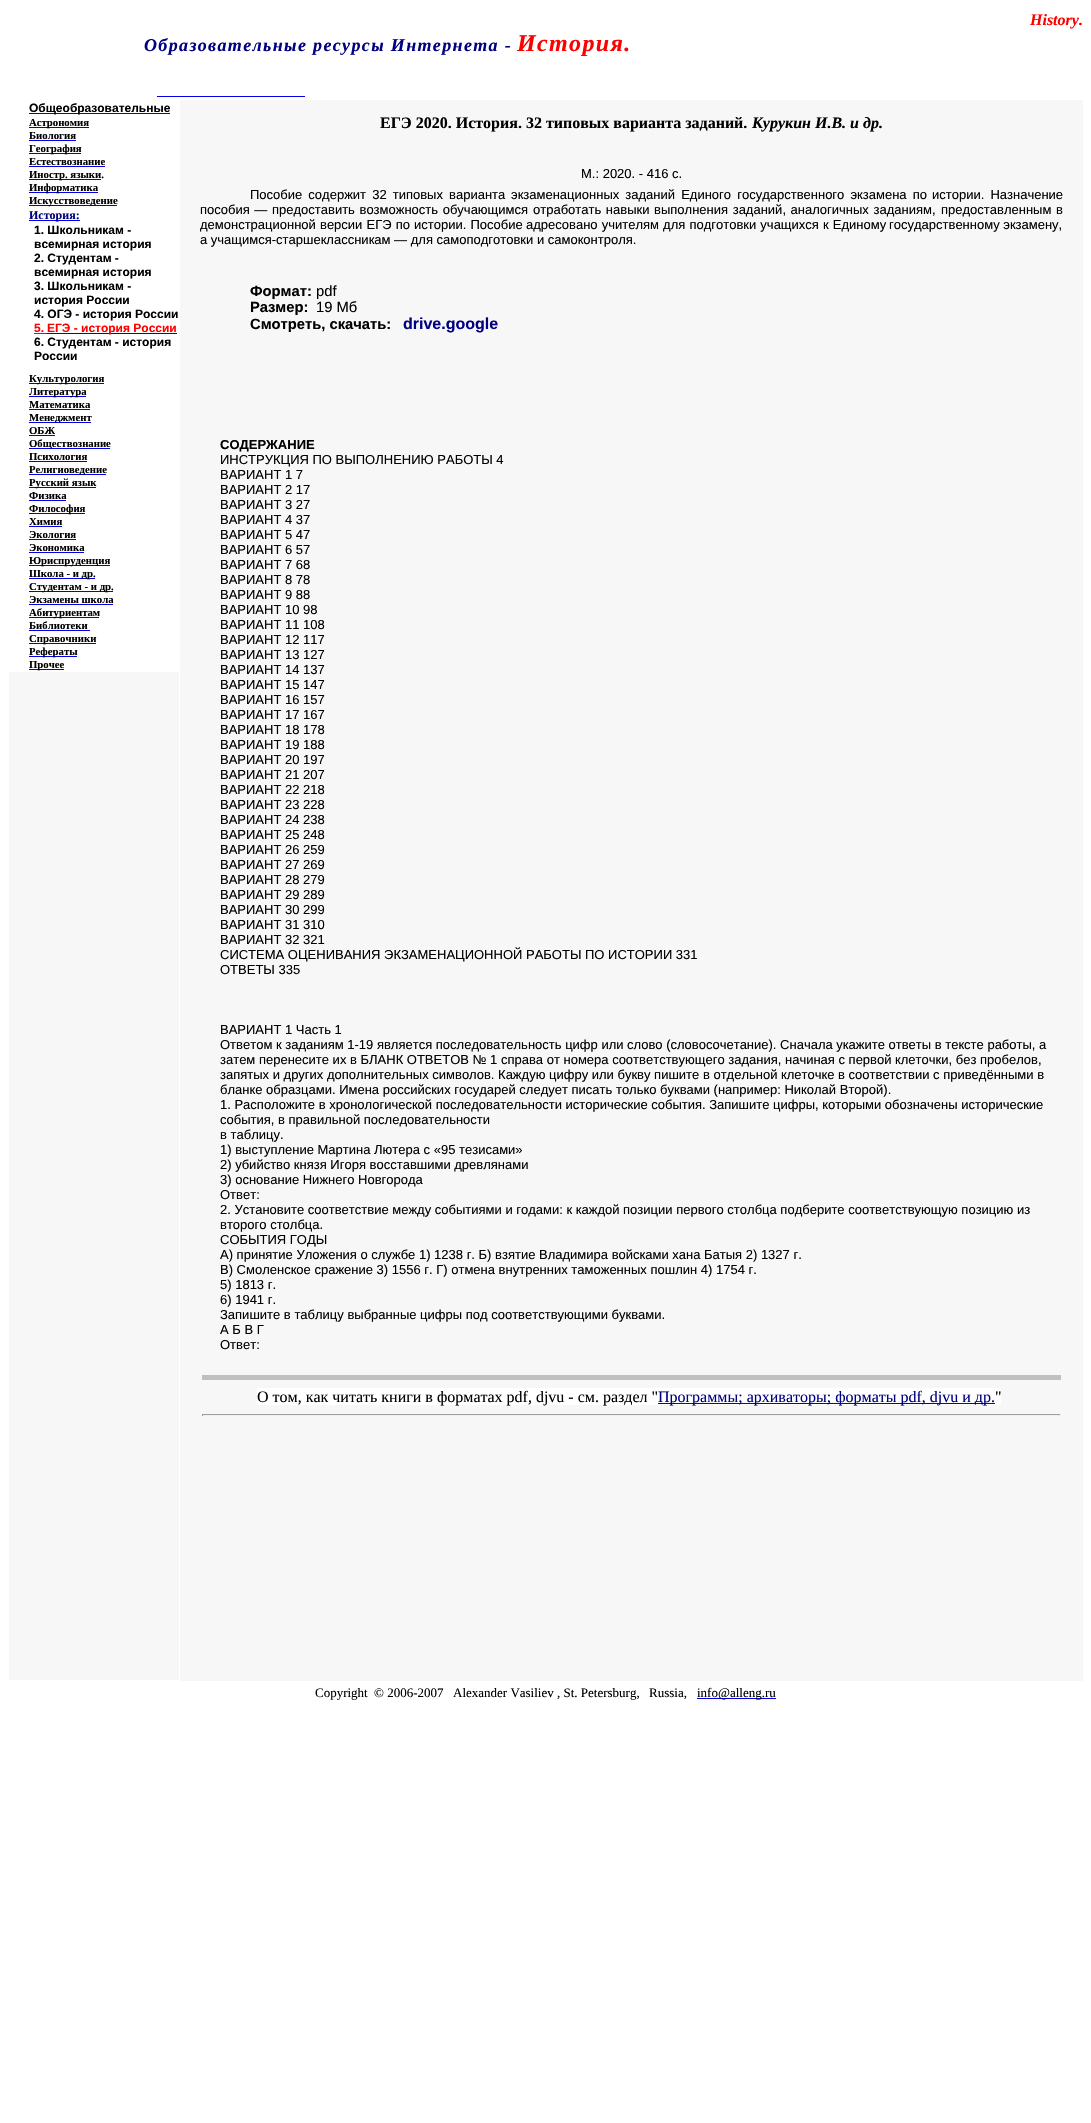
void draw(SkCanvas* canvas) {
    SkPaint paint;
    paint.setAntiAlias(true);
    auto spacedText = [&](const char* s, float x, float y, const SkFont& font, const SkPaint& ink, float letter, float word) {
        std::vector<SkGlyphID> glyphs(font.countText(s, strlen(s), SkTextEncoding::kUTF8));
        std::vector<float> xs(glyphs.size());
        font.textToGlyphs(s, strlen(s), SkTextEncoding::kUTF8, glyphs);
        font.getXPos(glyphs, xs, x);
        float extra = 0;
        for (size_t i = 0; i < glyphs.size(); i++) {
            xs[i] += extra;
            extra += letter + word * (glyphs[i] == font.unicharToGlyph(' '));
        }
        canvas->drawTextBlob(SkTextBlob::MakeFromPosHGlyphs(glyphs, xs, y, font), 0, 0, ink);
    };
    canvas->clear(0xFFFFFFFF);
    SkFont font1(fontMgr->matchFamilyStyle("Liberation Serif", SkFontStyle::BoldItalic()), 16);
    font1.setSubpixel(true);
    paint.setColor(0xFFFF0000);
    canvas->drawString("History.", 1030, 25, font1, paint);
    SkFont font2(fontMgr->matchFamilyStyle("Liberation Serif", SkFontStyle::BoldItalic()), 18);
    font2.setSubpixel(true);
    paint.setColor(0xFF000080);
    spacedText("Образовательные ресурсы Интернета -", 144, 51, font2, paint, 1.35f, 0);
    SkFont font3(fontMgr->matchFamilyStyle("Liberation Serif", SkFontStyle::BoldItalic()), 24);
    font3.setSubpixel(true);
    paint.setColor(0xFFFF0000);
    spacedText("История.", 517, 51, font3, paint, 1.35f, 0);
    paint.setColor(0xFF0000EE);
    canvas->drawRect(SkRect::MakeXYWH(157, 96, 148, 1), paint);
    canvas->drawRect(SkRect::MakeXYWH(29, 113, 141, 1), paint);
    SkFont font4(fontMgr->matchFamilyStyle("Liberation Sans", SkFontStyle::Bold()), 12);
    font4.setSubpixel(true);
    paint.setColor(0xFF000000);
    canvas->drawString("Общеобразовательные", 29, 112, font4, paint);
    paint.setColor(0xFFF7F7F7);
    canvas->drawRect(SkRect::MakeXYWH(180, 100, 903, 1581), paint);
    SkFont font5(fontMgr->matchFamilyStyle("Liberation Serif", SkFontStyle::Bold()), 16);
    font5.setSubpixel(true);
    paint.setColor(0xFF000000);
    canvas->drawString("ЕГЭ 2020. История. 32 типовых варианта заданий.", 380, 128, font5, paint);
    canvas->drawString("Курукин И.В. и др.", 752, 128, font1, paint);
    SkFont font6(fontMgr->matchFamilyStyle("Liberation Sans", SkFontStyle::Normal()), 13);
    font6.setSubpixel(true);
    canvas->drawString("М.: 2020. - 416 с.", 581, 178, font6, paint);
    spacedText("Пособие содержит 32 типовых варианта", 250, 199, font6, paint, 0, 2.5f);
    spacedText("экзаменационных заданий Единого государственного экзамена по", 511, 199, font6, paint, 0, 2.5f);
    spacedText("истории. Назначение", 932, 199, font6, paint, 0, 2.5f);
    spacedText("пособия — предоставить возможность обучающимся", 200, 214, font6, paint, 0, 1);
    spacedText("отработать навыки выполнения заданий, аналогичных заданиям,", 533, 214, font6, paint, 0, 1);
    spacedText("предоставленным в", 941, 214, font6, paint, 0, 1);
    spacedText("демонстрационной версии ЕГЭ по истории. Пособие", 200, 229, font6, paint, 0, 0.5f);
    spacedText("адресовано учителям для подготовки учащихся к Единому", 526, 229, font6, paint, 0, 0.5f);
    canvas->drawString("государственному экзамену,", 889, 229, font6, paint);
    canvas->drawString("а учащимся-старшеклассникам — для самоподготовки и самоконтроля.", 200, 244, font6, paint);
    SkFont font7(fontMgr->matchFamilyStyle("Liberation Sans", SkFontStyle::Bold()), 14.75f);
    font7.setSubpixel(true);
    canvas->drawString("Формат:", 250, 296, font7, paint);
    SkFont font8(fontMgr->matchFamilyStyle("Liberation Sans", SkFontStyle::Normal()), 14.75f);
    font8.setSubpixel(true);
    canvas->drawString("pdf", 316, 296, font8, paint);
    canvas->drawString("Размер:", 250, 312, font7, paint);
    canvas->drawString("19 Мб", 316, 312, font8, paint);
    canvas->drawString("Смотреть, скачать:", 250, 329, font7, paint);
    SkFont font9(fontMgr->matchFamilyStyle("Liberation Sans", SkFontStyle::Bold()), 16);
    font9.setSubpixel(true);
    paint.setColor(0xFF000080);
    canvas->drawString("drive.google", 403, 329, font9, paint);
    SkFont font10(fontMgr->matchFamilyStyle("Liberation Sans", SkFontStyle::Bold()), 13);
    font10.setSubpixel(true);
    paint.setColor(0xFF000000);
    canvas->drawString("СОДЕРЖАНИЕ", 220, 449, font10, paint);
    canvas->drawString("ИНСТРУКЦИЯ ПО ВЫПОЛНЕНИЮ РАБОТЫ 4", 220, 464, font6, paint);
    canvas->drawString("ВАРИАНТ 1 7", 220, 479, font6, paint);
    canvas->drawString("ВАРИАНТ 2 17", 220, 494, font6, paint);
    canvas->drawString("ВАРИАНТ 3 27", 220, 509, font6, paint);
    canvas->drawString("ВАРИАНТ 4 37", 220, 524, font6, paint);
    canvas->drawString("ВАРИАНТ 5 47", 220, 539, font6, paint);
    canvas->drawString("ВАРИАНТ 6 57", 220, 554, font6, paint);
    canvas->drawString("ВАРИАНТ 7 68", 220, 569, font6, paint);
    canvas->drawString("ВАРИАНТ 8 78", 220, 584, font6, paint);
    canvas->drawString("ВАРИАНТ 9 88", 220, 599, font6, paint);
    canvas->drawString("ВАРИАНТ 10 98", 220, 614, font6, paint);
    canvas->drawString("ВАРИАНТ 11 108", 220, 629, font6, paint);
    canvas->drawString("ВАРИАНТ 12 117", 220, 644, font6, paint);
    canvas->drawString("ВАРИАНТ 13 127", 220, 659, font6, paint);
    canvas->drawString("ВАРИАНТ 14 137", 220, 674, font6, paint);
    canvas->drawString("ВАРИАНТ 15 147", 220, 689, font6, paint);
    canvas->drawString("ВАРИАНТ 16 157", 220, 704, font6, paint);
    canvas->drawString("ВАРИАНТ 17 167", 220, 719, font6, paint);
    canvas->drawString("ВАРИАНТ 18 178", 220, 734, font6, paint);
    canvas->drawString("ВАРИАНТ 19 188", 220, 749, font6, paint);
    canvas->drawString("ВАРИАНТ 20 197", 220, 764, font6, paint);
    canvas->drawString("ВАРИАНТ 21 207", 220, 779, font6, paint);
    canvas->drawString("ВАРИАНТ 22 218", 220, 794, font6, paint);
    canvas->drawString("ВАРИАНТ 23 228", 220, 809, font6, paint);
    canvas->drawString("ВАРИАНТ 24 238", 220, 824, font6, paint);
    canvas->drawString("ВАРИАНТ 25 248", 220, 839, font6, paint);
    canvas->drawString("ВАРИАНТ 26 259", 220, 854, font6, paint);
    canvas->drawString("ВАРИАНТ 27 269", 220, 869, font6, paint);
    canvas->drawString("ВАРИАНТ 28 279", 220, 884, font6, paint);
    canvas->drawString("ВАРИАНТ 29 289", 220, 899, font6, paint);
    canvas->drawString("ВАРИАНТ 30 299", 220, 914, font6, paint);
    canvas->drawString("ВАРИАНТ 31 310", 220, 929, font6, paint);
    canvas->drawString("ВАРИАНТ 32 321", 220, 944, font6, paint);
    canvas->drawString("СИСТЕМА ОЦЕНИВАНИЯ ЭКЗАМЕНАЦИОННОЙ РАБОТЫ ПО ИСТОРИИ 331", 220, 959, font6, paint);
    canvas->drawString("ОТВЕТЫ 335", 220, 974, font6, paint);
    canvas->drawString("ВАРИАНТ 1 Часть 1", 220, 1034, font6, paint);
    canvas->drawString("Ответом к заданиям 1-19 является последовательность цифр или слово (словосочетание). Сначала укажите ответы в тексте работы, а", 220, 1049, font6, paint);
    canvas->drawString("затем перенесите их в БЛАНК ОТВЕТОВ № 1 справа от номера соответствующего задания, начиная с первой клеточки, без пробелов,", 220, 1064, font6, paint);
    canvas->drawString("запятых и других дополнительных символов. Каждую цифру или букву пишите в отдельной клеточке в соответствии с приведёнными в", 220, 1079, font6, paint);
    canvas->drawString("бланке образцами. Имена российских государей следует писать только буквами (например: Николай Второй).", 220, 1094, font6, paint);
    canvas->drawString("1. Расположите в хронологической последовательности исторические события. Запишите цифры, которыми обозначены исторические", 220, 1109, font6, paint);
    canvas->drawString("события, в правильной последовательности", 220, 1124, font6, paint);
    canvas->drawString("в таблицу.", 220, 1139, font6, paint);
    canvas->drawString("1) выступление Мартина Лютера с «95 тезисами»", 220, 1154, font6, paint);
    canvas->drawString("2) убийство князя Игоря восставшими древлянами", 220, 1169, font6, paint);
    canvas->drawString("3) основание Нижнего Новгорода", 220, 1184, font6, paint);
    canvas->drawString("Ответ:", 220, 1199, font6, paint);
    canvas->drawString("2. Установите соответствие между событиями и годами: к каждой позиции первого столбца подберите соответствующую позицию из", 220, 1214, font6, paint);
    canvas->drawString("второго столбца.", 220, 1229, font6, paint);
    canvas->drawString("СОБЫТИЯ ГОДЫ", 220, 1244, font6, paint);
    canvas->drawString("A) принятие Уложения о службе 1) 1238 г. Б) взятие Владимира войсками хана Батыя 2) 1327 г.", 220, 1259, font6, paint);
    canvas->drawString("B) Смоленское сражение 3) 1556 г. Г) отмена внутренних таможенных пошлин 4) 1754 г.", 220, 1274, font6, paint);
    canvas->drawString("5) 1813 г.", 220, 1289, font6, paint);
    canvas->drawString("6) 1941 г.", 220, 1304, font6, paint);
    canvas->drawString("Запишите в таблицу выбранные цифры под соответствующими буквами.", 220, 1319, font6, paint);
    canvas->drawString("А Б В Г", 220, 1334, font6, paint);
    canvas->drawString("Ответ:", 220, 1349, font6, paint);
    paint.setColor(0xFFC0C0C0);
    canvas->drawRect(SkRect::MakeXYWH(202, 1375, 859, 5), paint);
    paint.setColor(0xFFFFFFFF);
    canvas->drawRect(SkRect::MakeXYWH(257, 1388, 744, 17), paint);
    SkFont font11(fontMgr->matchFamilyStyle("Liberation Serif", SkFontStyle::Normal()), 16);
    font11.setSubpixel(true);
    paint.setColor(0xFF000000);
    canvas->drawString("О том, как читать книги в форматах pdf, djvu - см. раздел \"", 257, 1402, font11, paint);
    paint.setColor(0xFF0000EE);
    canvas->drawRect(SkRect::MakeXYWH(658, 1403, 337, 1), paint);
    paint.setColor(0xFF000080);
    canvas->drawString("Программы; архиваторы; форматы pdf, djvu и др.", 658, 1402, font11, paint);
    paint.setColor(0xFF000000);
    canvas->drawString("\"", 995, 1402, font11, paint);
    paint.setColor(0xFF9F9F9F);
    canvas->drawRect(SkRect::MakeXYWH(202, 1414, 859, 1), paint);
    paint.setColor(0xFFEEEEEE);
    canvas->drawRect(SkRect::MakeXYWH(1060, 1414, 1, 2), paint);
    canvas->drawRect(SkRect::MakeXYWH(202, 1415, 859, 1), paint);
    paint.setColor(0xFF9F9F9F);
    canvas->drawRect(SkRect::MakeXYWH(202, 1414, 1, 2), paint);
    paint.setColor(0xFF0000EE);
    canvas->drawRect(SkRect::MakeXYWH(29, 127, 60, 1), paint);
    SkFont font12(fontMgr->matchFamilyStyle("Liberation Serif", SkFontStyle::Bold()), 10.75f);
    font12.setSubpixel(true);
    paint.setColor(0xFF000000);
    canvas->drawString("Астрономия", 29, 126, font12, paint);
    canvas->drawString("Биология", 29, 139, font12, paint);
    paint.setColor(0xFF0000EE);
    canvas->drawRect(SkRect::MakeXYWH(29, 140, 47, 1), paint);
    canvas->drawRect(SkRect::MakeXYWH(29, 153, 52, 1), paint);
    paint.setColor(0xFF000000);
    canvas->drawString("География", 29, 152, font12, paint);
    canvas->drawString("Естествознание", 29, 165, font12, paint);
    paint.setColor(0xFF0000EE);
    canvas->drawRect(SkRect::MakeXYWH(29, 166, 76, 1), paint);
    canvas->drawRect(SkRect::MakeXYWH(29, 179, 72, 1), paint);
    paint.setColor(0xFF000000);
    canvas->drawString("Иностр. языки.", 29, 178, font12, paint);
    paint.setColor(0xFF0000EE);
    canvas->drawRect(SkRect::MakeXYWH(29, 192, 69, 1), paint);
    paint.setColor(0xFF000000);
    canvas->drawString("Информатика", 29, 191, font12, paint);
    paint.setColor(0xFF0000EE);
    canvas->drawRect(SkRect::MakeXYWH(29, 205, 88, 1), paint);
    paint.setColor(0xFF000000);
    canvas->drawString("Искусствоведение", 29, 204, font12, paint);
    paint.setColor(0xFF0000EE);
    canvas->drawRect(SkRect::MakeXYWH(29, 220, 51, 1), paint);
    SkFont font13(fontMgr->matchFamilyStyle("Liberation Serif", SkFontStyle::Bold()), 12);
    font13.setSubpixel(true);
    paint.setColor(0xFF000080);
    canvas->drawString("История:", 29, 219, font13, paint);
    paint.setColor(0xFF000000);
    canvas->drawString("1. Школьникам -", 34, 234, font4, paint);
    canvas->drawString("всемирная история", 34, 248, font4, paint);
    canvas->drawString("2. Студентам -", 34, 262, font4, paint);
    canvas->drawString("всемирная история", 34, 276, font4, paint);
    canvas->drawString("3. Школьникам -", 34, 290, font4, paint);
    canvas->drawString("история России", 34, 304, font4, paint);
    canvas->drawString("4. ОГЭ - история России", 34, 318, font4, paint);
    paint.setColor(0xFFFF0000);
    canvas->drawString("5.", 34, 332, font4, paint);
    paint.setColor(0xFF0000EE);
    canvas->drawRect(SkRect::MakeXYWH(47, 333, 130, 1), paint);
    paint.setColor(0xFFFF0000);
    canvas->drawString("ЕГЭ - история России", 47, 332, font4, paint);
    canvas->drawRect(SkRect::MakeXYWH(34, 333, 13, 1), paint);
    paint.setColor(0xFF000000);
    canvas->drawString("6. Студентам - история", 34, 346, font4, paint);
    canvas->drawString("России", 34, 360, font4, paint);
    paint.setColor(0xFF0000EE);
    canvas->drawRect(SkRect::MakeXYWH(29, 383, 75, 1), paint);
    paint.setColor(0xFF000000);
    canvas->drawString("Культурология", 29, 382, font12, paint);
    paint.setColor(0xFF0000EE);
    canvas->drawRect(SkRect::MakeXYWH(29, 396, 57, 1), paint);
    paint.setColor(0xFF000000);
    canvas->drawString("Литература", 29, 395, font12, paint);
    canvas->drawString("Математика", 29, 408, font12, paint);
    paint.setColor(0xFF0000EE);
    canvas->drawRect(SkRect::MakeXYWH(29, 409, 61, 1), paint);
    canvas->drawRect(SkRect::MakeXYWH(29, 422, 62, 1), paint);
    paint.setColor(0xFF000000);
    canvas->drawString("Менеджмент", 29, 421, font12, paint);
    canvas->drawString("ОБЖ", 29, 434, font12, paint);
    paint.setColor(0xFF0000EE);
    canvas->drawRect(SkRect::MakeXYWH(29, 435, 26, 1), paint);
    canvas->drawRect(SkRect::MakeXYWH(29, 448, 81, 1), paint);
    paint.setColor(0xFF000000);
    canvas->drawString("Обществознание", 29, 447, font12, paint);
    canvas->drawString("Психология", 29, 460, font12, paint);
    paint.setColor(0xFF0000EE);
    canvas->drawRect(SkRect::MakeXYWH(29, 461, 58, 1), paint);
    canvas->drawRect(SkRect::MakeXYWH(29, 474, 77, 1), paint);
    paint.setColor(0xFF000000);
    canvas->drawString("Религиоведение", 29, 473, font12, paint);
    paint.setColor(0xFF0000EE);
    canvas->drawRect(SkRect::MakeXYWH(29, 487, 67, 1), paint);
    paint.setColor(0xFF000000);
    canvas->drawString("Русский язык", 29, 486, font12, paint);
    canvas->drawString("Физика", 29, 499, font12, paint);
    paint.setColor(0xFF0000EE);
    canvas->drawRect(SkRect::MakeXYWH(29, 500, 37, 1), paint);
    canvas->drawRect(SkRect::MakeXYWH(29, 513, 56, 1), paint);
    paint.setColor(0xFF000000);
    canvas->drawString("Философия", 29, 512, font12, paint);
    canvas->drawString("Химия", 29, 525, font12, paint);
    paint.setColor(0xFF0000EE);
    canvas->drawRect(SkRect::MakeXYWH(29, 526, 33, 1), paint);
    paint.setColor(0xFF000000);
    canvas->drawString("Экология", 29, 538, font12, paint);
    paint.setColor(0xFF0000EE);
    canvas->drawRect(SkRect::MakeXYWH(29, 539, 47, 1), paint);
    paint.setColor(0xFF000000);
    canvas->drawString("Экономика", 29, 551, font12, paint);
    paint.setColor(0xFF0000EE);
    canvas->drawRect(SkRect::MakeXYWH(29, 552, 55, 1), paint);
    canvas->drawRect(SkRect::MakeXYWH(29, 565, 81, 1), paint);
    paint.setColor(0xFF000000);
    canvas->drawString("Юриспруденция", 29, 564, font12, paint);
    paint.setColor(0xFF0000EE);
    canvas->drawRect(SkRect::MakeXYWH(29, 578, 66, 1), paint);
    paint.setColor(0xFF000000);
    canvas->drawString("Школа - и др.", 29, 577, font12, paint);
    paint.setColor(0xFF0000EE);
    canvas->drawRect(SkRect::MakeXYWH(29, 591, 84, 1), paint);
    paint.setColor(0xFF000000);
    canvas->drawString("Студентам - и др.", 29, 590, font12, paint);
    canvas->drawString("Экзамены школа", 29, 603, font12, paint);
    paint.setColor(0xFF0000EE);
    canvas->drawRect(SkRect::MakeXYWH(29, 604, 84, 1), paint);
    canvas->drawRect(SkRect::MakeXYWH(29, 617, 70, 1), paint);
    paint.setColor(0xFF000000);
    canvas->drawString("Абитуриентам", 29, 616, font12, paint);
    canvas->drawString("Библиотеки", 29, 629, font12, paint);
    paint.setColor(0xFF0000EE);
    canvas->drawRect(SkRect::MakeXYWH(29, 630, 61, 1), paint);
    canvas->drawRect(SkRect::MakeXYWH(29, 643, 67, 1), paint);
    paint.setColor(0xFF000000);
    canvas->drawString("Справочники", 29, 642, font12, paint);
    paint.setColor(0xFF0000EE);
    canvas->drawRect(SkRect::MakeXYWH(29, 656, 48, 1), paint);
    paint.setColor(0xFF000000);
    canvas->drawString("Рефераты", 29, 655, font12, paint);
    paint.setColor(0xFF0000EE);
    canvas->drawRect(SkRect::MakeXYWH(29, 669, 35, 1), paint);
    paint.setColor(0xFF000000);
    canvas->drawString("Прочее", 29, 668, font12, paint);
    paint.setColor(0xFFF7F7F7);
    canvas->drawRect(SkRect::MakeXYWH(9, 672, 170, 1008), paint);
    SkFont font14(fontMgr->matchFamilyStyle("Liberation Serif", SkFontStyle::Normal()), 13);
    font14.setSubpixel(true);
    paint.setColor(0xFF000000);
    canvas->drawString("Copyright", 315, 1697, font14, paint);
    canvas->drawString("© 2006-2007", 374, 1697, font14, paint);
    canvas->drawString("Alexander Vasiliev , St. Petersburg,", 453, 1697, font14, paint);
    canvas->drawString("Russia,", 649, 1697, font14, paint);
    paint.setColor(0xFF0000EE);
    canvas->drawRect(SkRect::MakeXYWH(697, 1698, 79, 1), paint);
    paint.setColor(0xFF000000);
    canvas->drawString("info@alleng.ru", 697, 1697, font14, paint);
}
